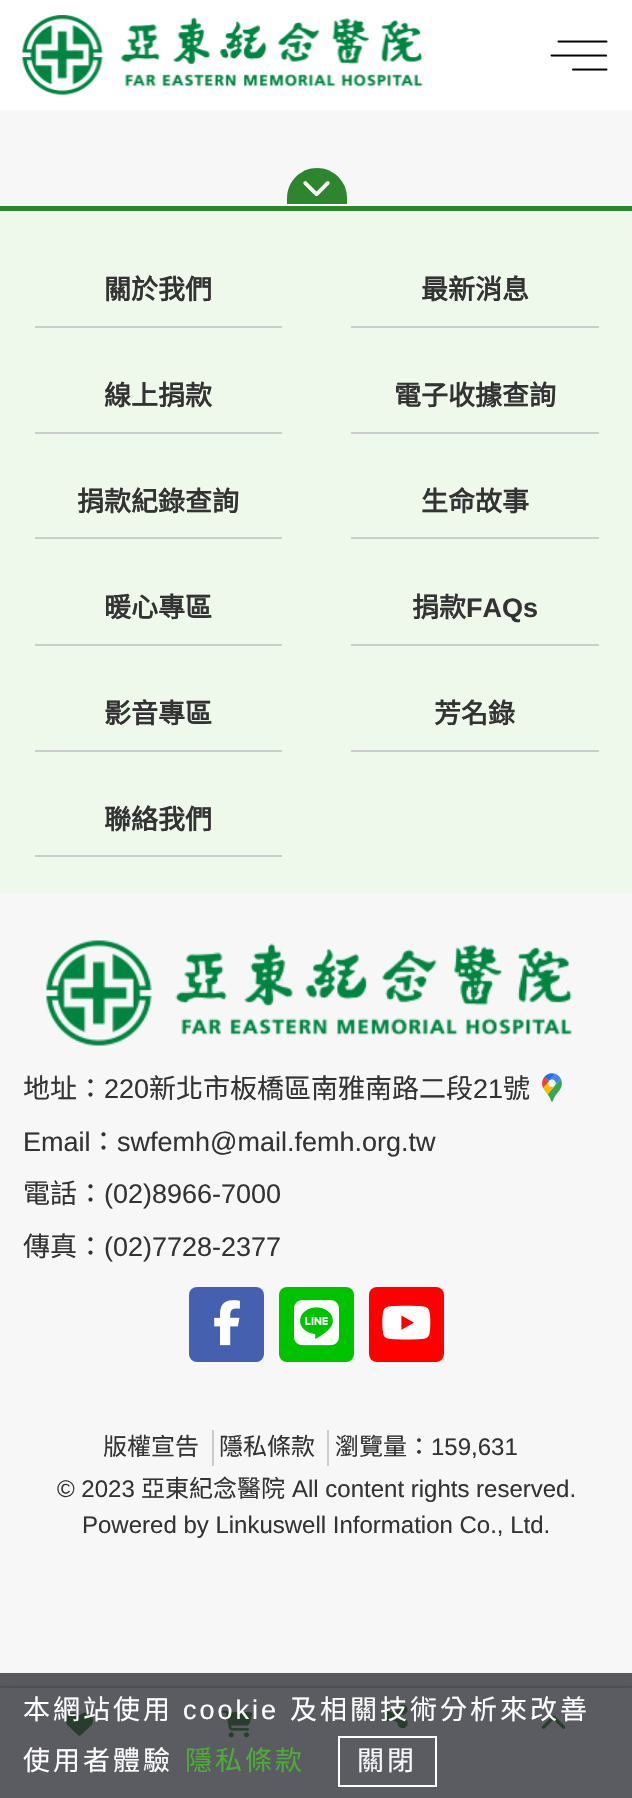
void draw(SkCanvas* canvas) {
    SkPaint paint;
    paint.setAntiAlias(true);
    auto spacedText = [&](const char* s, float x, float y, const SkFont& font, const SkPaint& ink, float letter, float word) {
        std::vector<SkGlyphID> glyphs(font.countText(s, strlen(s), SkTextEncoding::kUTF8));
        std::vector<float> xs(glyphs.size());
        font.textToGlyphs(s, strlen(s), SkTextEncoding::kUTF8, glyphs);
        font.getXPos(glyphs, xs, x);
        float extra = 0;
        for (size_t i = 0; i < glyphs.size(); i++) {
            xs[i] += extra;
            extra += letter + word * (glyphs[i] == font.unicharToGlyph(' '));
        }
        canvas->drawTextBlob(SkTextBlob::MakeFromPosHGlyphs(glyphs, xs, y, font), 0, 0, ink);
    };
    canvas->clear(0xFFF7F7F7);
    paint.setColor(0xFFFFFFFF);
    canvas->drawRect(SkRect::MakeXYWH(0, 0, 632, 110), paint);
    canvas->drawImageRect(SkImages::DeferredFromEncodedData(SkData::MakeFromFileName("img1.png")), SkRect::MakeXYWH(22, 15, 401, 80), SkSamplingOptions());
    canvas->drawImageRect(SkImages::DeferredFromEncodedData(SkData::MakeFromFileName("img2.png")), SkRect::MakeXYWH(550, 40, 58, 31), SkSamplingOptions());
    paint.setColor(0xFF2D862D);
    canvas->drawRect(SkRect::MakeXYWH(0, 206, 632, 5), paint);
    canvas->drawPath(SkPathBuilder().moveTo(317, 168).cubicTo(333.5f, 168, 347, 181.5f, 347, 198).lineTo(347, 204).lineTo(287, 204).lineTo(287, 198).cubicTo(287, 181.5f, 300.5f, 168, 317, 168).close().detach(), paint);
    canvas->drawImageRect(SkImages::DeferredFromEncodedData(SkData::MakeFromFileName("img3.png")), SkRect::MakeXYWH(303, 181, 27, 16), SkSamplingOptions());
    paint.setColor(0xFFEEF9EC);
    canvas->drawRect(SkRect::MakeXYWH(0, 211, 632, 682), paint);
    paint.setColor(0xFFCCCCCC);
    canvas->drawRect(SkRect::MakeXYWH(35, 326, 247, 2), paint);
    SkFont font1(fontMgr->matchFamilyStyle("Noto Sans TC", SkFontStyle::Bold()), 27);
    font1.setSubpixel(true);
    paint.setColor(0xFF333333);
    canvas->drawString("關於我們", 104, 299, font1, paint);
    paint.setColor(0xFFCCCCCC);
    canvas->drawRect(SkRect::MakeXYWH(351, 326, 248, 2), paint);
    paint.setColor(0xFF333333);
    canvas->drawString("最新消息", 421, 299, font1, paint);
    paint.setColor(0xFFCCCCCC);
    canvas->drawRect(SkRect::MakeXYWH(35, 432, 247, 2), paint);
    paint.setColor(0xFF333333);
    canvas->drawString("線上捐款", 104, 405, font1, paint);
    paint.setColor(0xFFCCCCCC);
    canvas->drawRect(SkRect::MakeXYWH(351, 432, 248, 2), paint);
    paint.setColor(0xFF333333);
    canvas->drawString("電子收據查詢", 394, 405, font1, paint);
    paint.setColor(0xFFCCCCCC);
    canvas->drawRect(SkRect::MakeXYWH(35, 537, 247, 2), paint);
    paint.setColor(0xFF333333);
    canvas->drawString("捐款紀錄查詢", 77, 511, font1, paint);
    paint.setColor(0xFFCCCCCC);
    canvas->drawRect(SkRect::MakeXYWH(351, 537, 248, 2), paint);
    paint.setColor(0xFF333333);
    canvas->drawString("生命故事", 421, 511, font1, paint);
    paint.setColor(0xFFCCCCCC);
    canvas->drawRect(SkRect::MakeXYWH(35, 644, 247, 2), paint);
    paint.setColor(0xFF333333);
    canvas->drawString("暖心專區", 104, 617, font1, paint);
    paint.setColor(0xFFCCCCCC);
    canvas->drawRect(SkRect::MakeXYWH(351, 644, 248, 2), paint);
    paint.setColor(0xFF333333);
    canvas->drawString("捐款", 412, 617, font1, paint);
    SkFont font2(fontMgr->matchFamilyStyle("Liberation Sans", SkFontStyle::Bold()), 27);
    font2.setSubpixel(true);
    canvas->drawString("FAQs", 466, 617, font2, paint);
    paint.setColor(0xFFCCCCCC);
    canvas->drawRect(SkRect::MakeXYWH(35, 750, 247, 2), paint);
    paint.setColor(0xFF333333);
    canvas->drawString("影音專區", 104, 723, font1, paint);
    paint.setColor(0xFFCCCCCC);
    canvas->drawRect(SkRect::MakeXYWH(351, 750, 248, 2), paint);
    paint.setColor(0xFF333333);
    canvas->drawString("芳名錄", 434, 723, font1, paint);
    paint.setColor(0xFFCCCCCC);
    canvas->drawRect(SkRect::MakeXYWH(35, 855, 247, 2), paint);
    paint.setColor(0xFF333333);
    canvas->drawString("聯絡我們", 104, 829, font1, paint);
    canvas->drawImageRect(SkImages::DeferredFromEncodedData(SkData::MakeFromFileName("img4.png")), SkRect::MakeXYWH(46, 940, 526, 106), SkSamplingOptions());
    SkFont font3(fontMgr->matchFamilyStyle("Noto Sans TC", SkFontStyle(100, SkFontStyle::kNormal_Width, SkFontStyle::kUpright_Slant)), 27);
    font3.setSubpixel(true);
    canvas->drawString("地址：", 23, 1098, font3, paint);
    SkFont font4(fontMgr->matchFamilyStyle("Liberation Sans", SkFontStyle::Normal()), 27);
    font4.setSubpixel(true);
    canvas->drawString("220", 104, 1098, font4, paint);
    canvas->drawString("新北市板橋區南雅南路二段", 149, 1098, font3, paint);
    canvas->drawString("21", 473, 1098, font4, paint);
    canvas->drawString("號", 503, 1098, font3, paint);
    canvas->drawImageRect(SkImages::DeferredFromEncodedData(SkData::MakeFromFileName("img5.png")), SkRect::MakeXYWH(542, 1073, 20, 29), SkSamplingOptions());
    canvas->drawString("Email", 23, 1151, font4, paint);
    canvas->drawString("：", 90, 1151, font3, paint);
    canvas->drawString("swfemh@mail.femh.org.tw", 117, 1151, font4, paint);
    canvas->drawString("電話：", 23, 1203, font3, paint);
    canvas->drawString("(02)8966-7000", 104, 1203, font4, paint);
    canvas->drawString("傳真：", 23, 1256, font3, paint);
    canvas->drawString("(02)7728-2377", 104, 1256, font4, paint);
    paint.setColor(0xFF4460AE);
    canvas->drawRoundRect(SkRect::MakeXYWH(189, 1287, 75, 75), 8, 8, paint);
    canvas->drawImageRect(SkImages::DeferredFromEncodedData(SkData::MakeFromFileName("img6.png")), SkRect::MakeXYWH(214, 1300, 26, 46), SkSamplingOptions());
    paint.setColor(0xFF00C300);
    canvas->drawRoundRect(SkRect::MakeXYWH(279, 1287, 75, 75), 8, 8, paint);
    canvas->drawImageRect(SkImages::DeferredFromEncodedData(SkData::MakeFromFileName("img7.png")), SkRect::MakeXYWH(294, 1300, 45, 46), SkSamplingOptions());
    paint.setColor(0xFFFF0000);
    canvas->drawRoundRect(SkRect::MakeXYWH(369, 1287, 75, 75), 8, 8, paint);
    canvas->drawImageRect(SkImages::DeferredFromEncodedData(SkData::MakeFromFileName("img8.png")), SkRect::MakeXYWH(382, 1305, 49, 35), SkSamplingOptions());
    paint.setColor(0xFFCCCCCC);
    canvas->drawRect(SkRect::MakeXYWH(212, 1430, 2, 36), paint);
    SkFont font5(fontMgr->matchFamilyStyle("Noto Sans TC", SkFontStyle(100, SkFontStyle::kNormal_Width, SkFontStyle::kUpright_Slant)), 24);
    font5.setSubpixel(true);
    paint.setColor(0xFF333333);
    canvas->drawString("版權宣告", 103, 1455, font5, paint);
    paint.setColor(0xFFCCCCCC);
    canvas->drawRect(SkRect::MakeXYWH(327, 1430, 2, 36), paint);
    paint.setColor(0xFF333333);
    canvas->drawString("隱私條款", 219, 1455, font5, paint);
    canvas->drawString("瀏覽量：", 335, 1455, font5, paint);
    SkFont font6(fontMgr->matchFamilyStyle("Liberation Sans", SkFontStyle::Normal()), 24);
    font6.setSubpixel(true);
    canvas->drawString("159,631", 431, 1455, font6, paint);
    canvas->drawString("© 2023", 57, 1497, font6, paint);
    canvas->drawString("亞東紀念醫院", 141, 1497, font5, paint);
    canvas->drawString("All content rights reserved.", 292, 1497, font6, paint);
    canvas->drawString("Powered by Linkuswell Information Co., Ltd.", 82, 1533, font6, paint);
    paint.setColor(0x33000000);
    paint.setMaskFilter(SkMaskFilter::MakeBlur(kNormal_SkBlurStyle, 7.5f));
    canvas->drawRect(SkRect::MakeXYWH(0, 1694, 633, 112), paint);
    paint.setMaskFilter(nullptr);
    paint.setColor(0xFFFFFFFF);
    canvas->drawRect(SkRect::MakeXYWH(0, 1688, 632, 110), paint);
    paint.setColor(0xFFCCCCCC);
    canvas->drawRect(SkRect::MakeXYWH(0, 1686, 632, 2), paint);
    canvas->drawImageRect(SkImages::DeferredFromEncodedData(SkData::MakeFromFileName("img9.png")), SkRect::MakeXYWH(66, 1712, 27, 24), SkSamplingOptions());
    canvas->drawImageRect(SkImages::DeferredFromEncodedData(SkData::MakeFromFileName("img10.png")), SkRect::MakeXYWH(222, 1710, 31, 28), SkSamplingOptions());
    canvas->drawImageRect(SkImages::DeferredFromEncodedData(SkData::MakeFromFileName("img11.png")), SkRect::MakeXYWH(384, 1704, 24, 25), SkSamplingOptions());
    canvas->drawImageRect(SkImages::DeferredFromEncodedData(SkData::MakeFromFileName("img12.png")), SkRect::MakeXYWH(541, 1715, 25, 14), SkSamplingOptions());
    paint.setColor(0xBF24262D);
    canvas->drawRect(SkRect::MakeXYWH(0, 1673, 632, 125), paint);
    paint.setColor(0xFFFFFFFF);
    spacedText("本網站使用", 23, 1719, font3, paint, 3, 0);
    spacedText("cookie", 183, 1719, font4, paint, 3, 0);
    spacedText("及相關技術分析來改善", 290, 1719, font3, paint, 3, 0);
    spacedText("使用者體驗", 23, 1770, font3, paint, 3, 0);
    paint.setColor(0xFF4DAC39);
    spacedText("隱私條款", 185, 1770, font3, paint, 3, 0);
    paint.setStyle(SkPaint::kStroke_Style);
    paint.setStrokeWidth(2);
    paint.setColor(0xFFFFFFFF);
    canvas->drawRect(SkRect::MakeXYWH(339, 1737, 97, 49), paint);
    paint.setStyle(SkPaint::kFill_Style);
    paint.setColor(0xFFF8F9FA);
    spacedText("關閉", 357, 1770, font3, paint, 3, 0);
}
